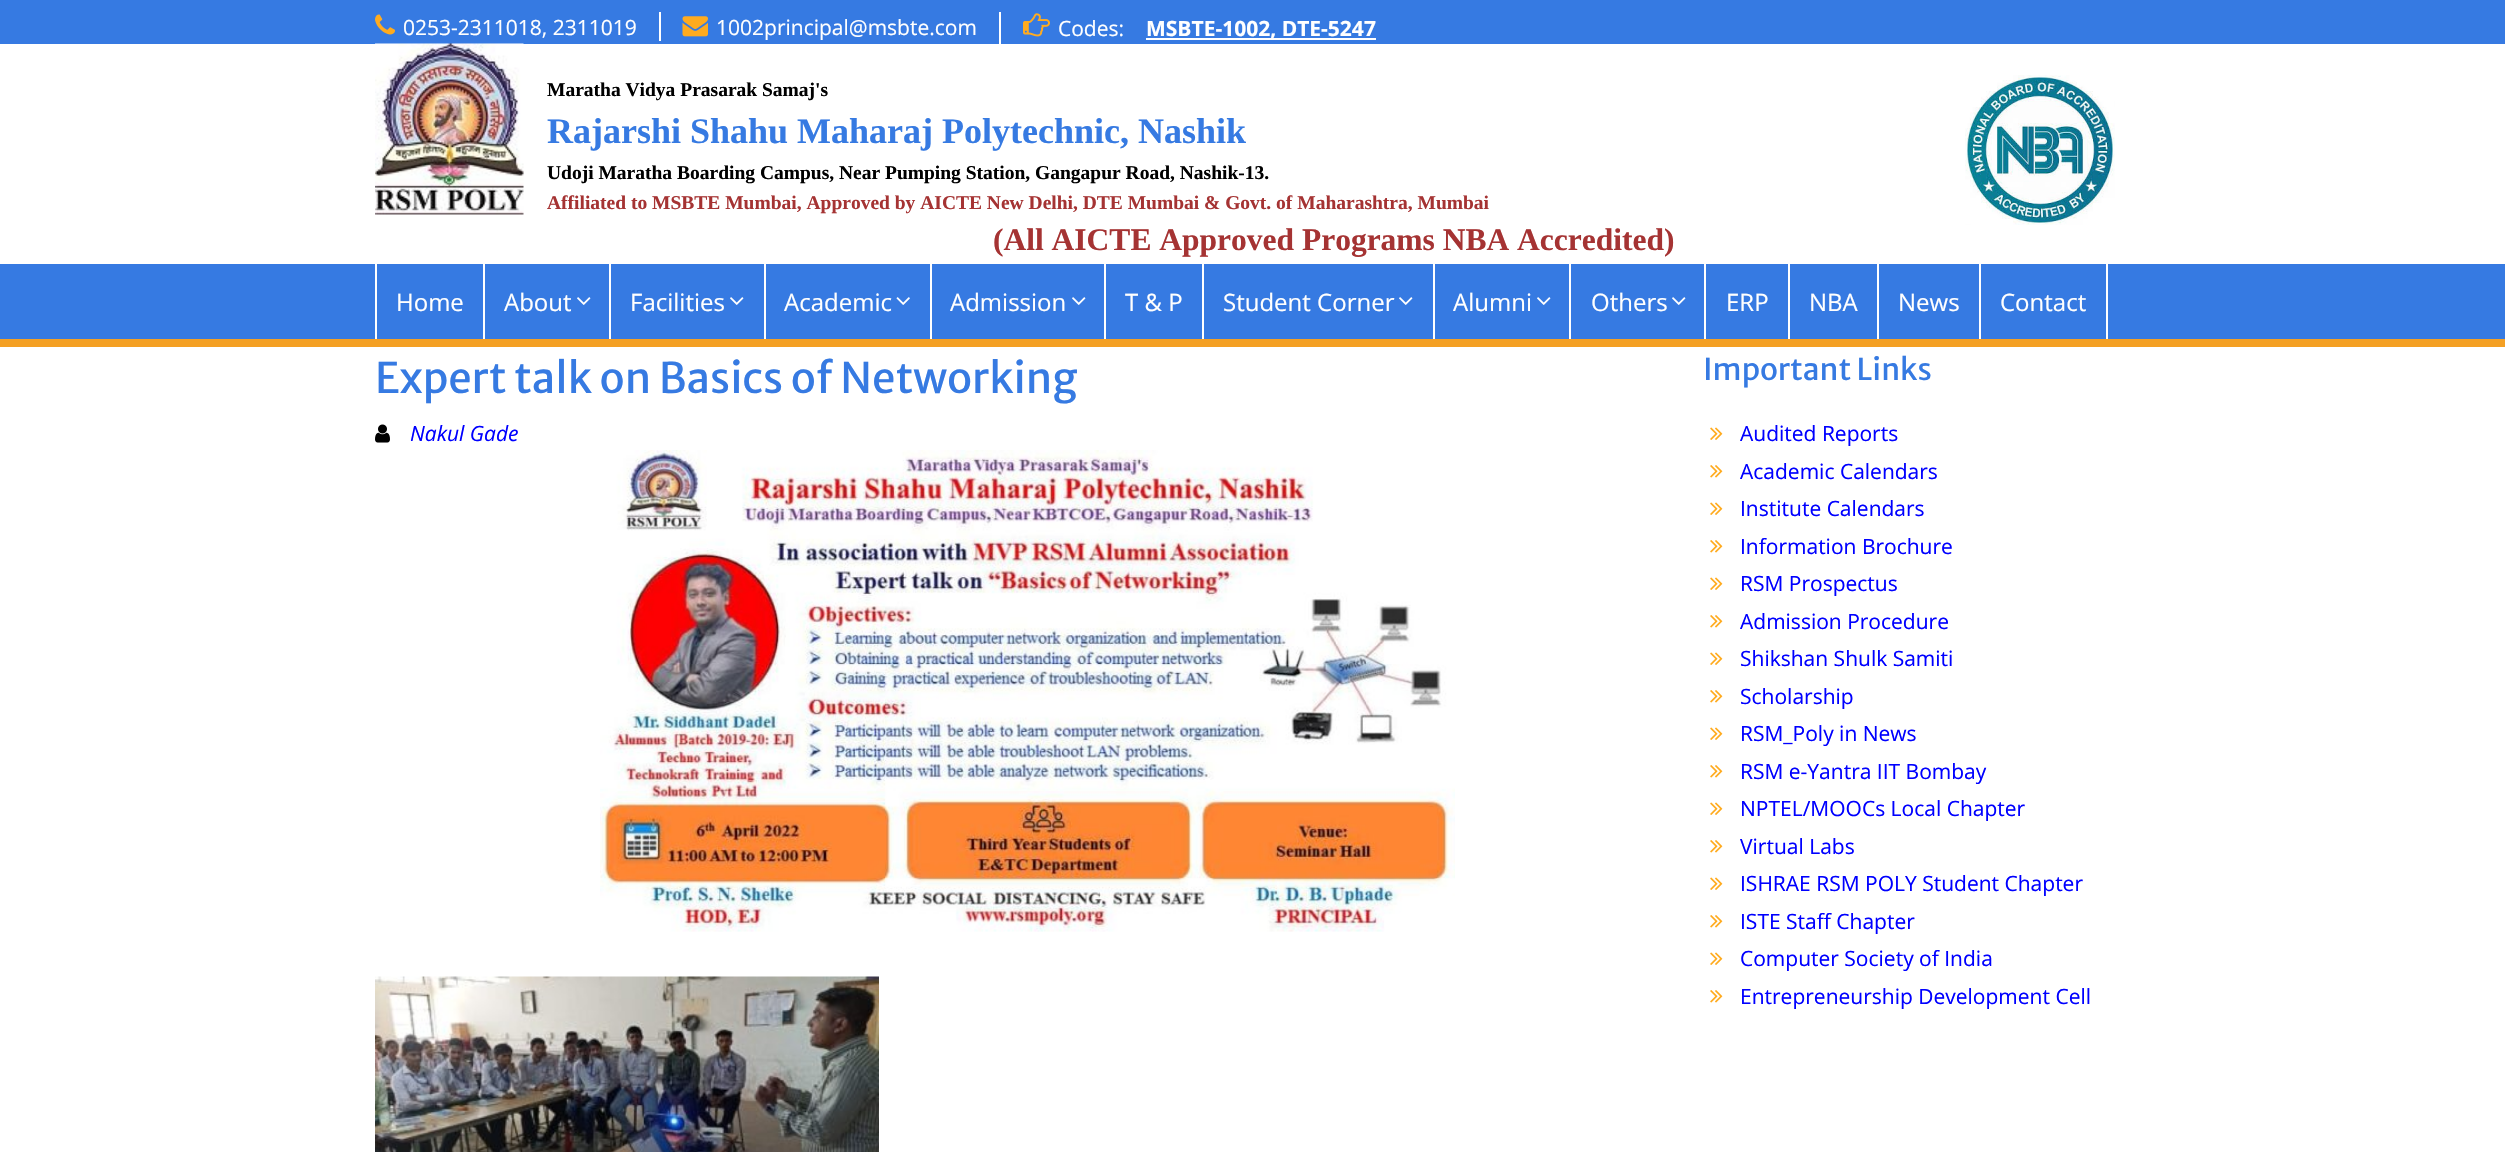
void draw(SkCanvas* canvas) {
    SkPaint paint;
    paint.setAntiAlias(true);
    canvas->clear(0xFFFFFFFF);
    paint.setColor(0xFF367AE2);
    canvas->drawRect(SkRect::MakeXYWH(0, 0, 2505, 44), paint);
    canvas->drawImageRect(SkImages::DeferredFromEncodedData(SkData::MakeFromFileName("img1.png")), SkRect::MakeXYWH(375, 14, 20, 21), SkSamplingOptions());
    SkFont font1(fontMgr->matchFamilyStyle("Open Sans", SkFontStyle::Normal()), 21);
    font1.setSubpixel(true);
    paint.setColor(0xFFFFFFFF);
    canvas->drawString("0253-2311018, 2311019", 403, 35, font1, paint);
    canvas->drawRect(SkRect::MakeXYWH(659, 12, 2, 29), paint);
    canvas->drawImageRect(SkImages::DeferredFromEncodedData(SkData::MakeFromFileName("img2.png")), SkRect::MakeXYWH(682, 16, 26, 21), SkSamplingOptions());
    canvas->drawString("1002principal@msbte.com", 716, 35, font1, paint);
    canvas->drawRect(SkRect::MakeXYWH(999, 12, 2, 32), paint);
    canvas->drawImageRect(SkImages::DeferredFromEncodedData(SkData::MakeFromFileName("img3.png")), SkRect::MakeXYWH(1023, 13, 27, 24), SkSamplingOptions());
    canvas->drawString("Codes:", 1058, 36, font1, paint);
    canvas->drawRect(SkRect::MakeXYWH(1146, 38, 230, 2), paint);
    SkFont font2(fontMgr->matchFamilyStyle("Open Sans", SkFontStyle::Bold()), 21);
    font2.setSubpixel(true);
    canvas->drawString("MSBTE-1002, DTE-5247", 1146, 36, font2, paint);
    canvas->drawImageRect(SkImages::DeferredFromEncodedData(SkData::MakeFromFileName("img4.png")), SkRect::MakeXYWH(375, 43, 149, 172), SkSamplingOptions());
    SkFont font3(fontMgr->matchFamilyStyle("Liberation Serif", SkFontStyle::Bold()), 19.5f);
    font3.setSubpixel(true);
    paint.setColor(0xFF000000);
    canvas->drawString("Maratha Vidya Prasarak Samaj's", 547, 96, font3, paint);
    SkFont font4(fontMgr->matchFamilyStyle("Liberation Serif", SkFontStyle::Bold()), 36);
    font4.setSubpixel(true);
    paint.setColor(0xFF367AE2);
    canvas->drawString("Rajarshi Shahu Maharaj Polytechnic, Nashik", 547, 143, font4, paint);
    paint.setColor(0xFF000000);
    canvas->drawString("Udoji Maratha Boarding Campus, Near Pumping Station, Gangapur Road, Nashik-13.", 547, 179, font3, paint);
    paint.setColor(0xFFA53333);
    canvas->drawString("Affiliated to MSBTE Mumbai, Approved by AICTE New Delhi, DTE Mumbai & Govt. of Maharashtra, Mumbai", 547, 209, font3, paint);
    SkFont font5(fontMgr->matchFamilyStyle("Liberation Serif", SkFontStyle::Bold()), 31.5f);
    font5.setSubpixel(true);
    canvas->drawString("(All AICTE Approved Programs NBA Accredited)", 993, 250, font5, paint);
    canvas->drawImageRect(SkImages::DeferredFromEncodedData(SkData::MakeFromFileName("img5.png")), SkRect::MakeXYWH(1965, 75, 150, 150), SkSamplingOptions());
    paint.setColor(0xFF367AE2);
    canvas->drawRect(SkRect::MakeXYWH(0, 264, 2505, 75), paint);
    paint.setColor(0xFFF4A024);
    canvas->drawRect(SkRect::MakeXYWH(0, 339, 2505, 8), paint);
    paint.setColor(0xFFFFFFFF);
    canvas->drawRect(SkRect::MakeXYWH(483, 264, 2, 75), paint);
    canvas->drawRect(SkRect::MakeXYWH(375, 264, 2, 75), paint);
    SkFont font6(fontMgr->matchFamilyStyle("Open Sans", SkFontStyle::Normal()), 24);
    font6.setSubpixel(true);
    canvas->drawString("Home", 396, 311, font6, paint);
    canvas->drawRect(SkRect::MakeXYWH(609, 264, 2, 75), paint);
    canvas->drawString("About", 504, 311, font6, paint);
    canvas->drawImageRect(SkImages::DeferredFromEncodedData(SkData::MakeFromFileName("img6.png")), SkRect::MakeXYWH(577, 297, 14, 8), SkSamplingOptions());
    canvas->drawRect(SkRect::MakeXYWH(764, 264, 2, 75), paint);
    canvas->drawString("Facilities", 630, 311, font6, paint);
    canvas->drawImageRect(SkImages::DeferredFromEncodedData(SkData::MakeFromFileName("img6.png")), SkRect::MakeXYWH(730, 297, 14, 8), SkSamplingOptions());
    canvas->drawRect(SkRect::MakeXYWH(930, 264, 2, 75), paint);
    canvas->drawString("Academic", 784, 311, font6, paint);
    canvas->drawImageRect(SkImages::DeferredFromEncodedData(SkData::MakeFromFileName("img7.png")), SkRect::MakeXYWH(896, 297, 14, 8), SkSamplingOptions());
    canvas->drawRect(SkRect::MakeXYWH(1104, 264, 2, 75), paint);
    canvas->drawString("Admission", 950, 311, font6, paint);
    canvas->drawImageRect(SkImages::DeferredFromEncodedData(SkData::MakeFromFileName("img6.png")), SkRect::MakeXYWH(1072, 297, 14, 8), SkSamplingOptions());
    canvas->drawRect(SkRect::MakeXYWH(1202, 264, 2, 75), paint);
    canvas->drawString("T & P", 1125, 311, font6, paint);
    canvas->drawRect(SkRect::MakeXYWH(1433, 264, 2, 75), paint);
    canvas->drawString("Student Corner", 1223, 311, font6, paint);
    canvas->drawImageRect(SkImages::DeferredFromEncodedData(SkData::MakeFromFileName("img6.png")), SkRect::MakeXYWH(1399, 297, 14, 8), SkSamplingOptions());
    canvas->drawRect(SkRect::MakeXYWH(1569, 264, 2, 75), paint);
    canvas->drawString("Alumni", 1453, 311, font6, paint);
    canvas->drawImageRect(SkImages::DeferredFromEncodedData(SkData::MakeFromFileName("img6.png")), SkRect::MakeXYWH(1537, 297, 14, 8), SkSamplingOptions());
    canvas->drawRect(SkRect::MakeXYWH(1704, 264, 2, 75), paint);
    canvas->drawString("Others", 1591, 311, font6, paint);
    canvas->drawImageRect(SkImages::DeferredFromEncodedData(SkData::MakeFromFileName("img6.png")), SkRect::MakeXYWH(1672, 297, 14, 8), SkSamplingOptions());
    canvas->drawRect(SkRect::MakeXYWH(1788, 264, 2, 75), paint);
    canvas->drawString("ERP", 1726, 311, font6, paint);
    canvas->drawRect(SkRect::MakeXYWH(1877, 264, 2, 75), paint);
    canvas->drawString("NBA", 1809, 311, font6, paint);
    canvas->drawRect(SkRect::MakeXYWH(1979, 264, 2, 75), paint);
    canvas->drawString("News", 1898, 311, font6, paint);
    canvas->drawRect(SkRect::MakeXYWH(2106, 264, 2, 75), paint);
    canvas->drawString("Contact", 2000, 311, font6, paint);
    SkFont font7(fontMgr->matchFamilyStyle("Merriweather Sans", SkFontStyle::Normal()), 42);
    font7.setSubpixel(true);
    paint.setColor(0xFF367AE2);
    canvas->drawString("Expert talk on Basics of Networking", 375, 393, font7, paint);
    canvas->drawImageRect(SkImages::DeferredFromEncodedData(SkData::MakeFromFileName("img8.png")), SkRect::MakeXYWH(375, 424, 15, 19), SkSamplingOptions());
    SkFont font8(fontMgr->matchFamilyStyle("Open Sans", SkFontStyle::Italic()), 21);
    font8.setSubpixel(true);
    paint.setColor(0xFF0000FF);
    canvas->drawString("Nakul Gade", 410, 441, font8, paint);
    canvas->drawImageRect(SkImages::DeferredFromEncodedData(SkData::MakeFromFileName("img9.png")), SkRect::MakeXYWH(600, 450, 855, 482), SkSamplingOptions());
    canvas->drawImageRect(SkImages::DeferredFromEncodedData(SkData::MakeFromFileName("img10.png")), SkRect::MakeXYWH(375, 976, 504, 176), SkSamplingOptions());
    SkFont font9(fontMgr->matchFamilyStyle("Merriweather Sans", SkFontStyle::Normal()), 30);
    font9.setSubpixel(true);
    paint.setColor(0xFF367AE2);
    canvas->drawString("Important Links", 1703, 380, font9, paint);
    canvas->drawImageRect(SkImages::DeferredFromEncodedData(SkData::MakeFromFileName("img11.png")), SkRect::MakeXYWH(1710, 427, 13, 13), SkSamplingOptions());
    paint.setColor(0xFF0000FF);
    canvas->drawString("Audited Reports", 1740, 441, font1, paint);
    canvas->drawImageRect(SkImages::DeferredFromEncodedData(SkData::MakeFromFileName("img12.png")), SkRect::MakeXYWH(1710, 465, 13, 13), SkSamplingOptions());
    canvas->drawString("Academic Calendars", 1740, 479, font1, paint);
    canvas->drawImageRect(SkImages::DeferredFromEncodedData(SkData::MakeFromFileName("img11.png")), SkRect::MakeXYWH(1710, 502, 13, 13), SkSamplingOptions());
    canvas->drawString("Institute Calendars", 1740, 516, font1, paint);
    canvas->drawImageRect(SkImages::DeferredFromEncodedData(SkData::MakeFromFileName("img12.png")), SkRect::MakeXYWH(1710, 540, 13, 13), SkSamplingOptions());
    canvas->drawString("Information Brochure", 1740, 554, font1, paint);
    canvas->drawImageRect(SkImages::DeferredFromEncodedData(SkData::MakeFromFileName("img11.png")), SkRect::MakeXYWH(1710, 577, 13, 13), SkSamplingOptions());
    canvas->drawString("RSM Prospectus", 1740, 591, font1, paint);
    canvas->drawImageRect(SkImages::DeferredFromEncodedData(SkData::MakeFromFileName("img12.png")), SkRect::MakeXYWH(1710, 615, 13, 13), SkSamplingOptions());
    canvas->drawString("Admission Procedure", 1740, 629, font1, paint);
    canvas->drawImageRect(SkImages::DeferredFromEncodedData(SkData::MakeFromFileName("img11.png")), SkRect::MakeXYWH(1710, 652, 13, 13), SkSamplingOptions());
    canvas->drawString("Shikshan Shulk Samiti", 1740, 666, font1, paint);
    canvas->drawImageRect(SkImages::DeferredFromEncodedData(SkData::MakeFromFileName("img12.png")), SkRect::MakeXYWH(1710, 690, 13, 13), SkSamplingOptions());
    canvas->drawString("Scholarship", 1740, 704, font1, paint);
    canvas->drawImageRect(SkImages::DeferredFromEncodedData(SkData::MakeFromFileName("img11.png")), SkRect::MakeXYWH(1710, 727, 13, 13), SkSamplingOptions());
    canvas->drawString("RSM_Poly in News", 1740, 741, font1, paint);
    canvas->drawImageRect(SkImages::DeferredFromEncodedData(SkData::MakeFromFileName("img12.png")), SkRect::MakeXYWH(1710, 765, 13, 13), SkSamplingOptions());
    canvas->drawString("RSM e-Yantra IIT Bombay", 1740, 779, font1, paint);
    canvas->drawImageRect(SkImages::DeferredFromEncodedData(SkData::MakeFromFileName("img11.png")), SkRect::MakeXYWH(1710, 802, 13, 13), SkSamplingOptions());
    canvas->drawString("NPTEL/MOOCs Local Chapter", 1740, 816, font1, paint);
    canvas->drawImageRect(SkImages::DeferredFromEncodedData(SkData::MakeFromFileName("img12.png")), SkRect::MakeXYWH(1710, 840, 13, 13), SkSamplingOptions());
    canvas->drawString("Virtual Labs", 1740, 854, font1, paint);
    canvas->drawImageRect(SkImages::DeferredFromEncodedData(SkData::MakeFromFileName("img11.png")), SkRect::MakeXYWH(1710, 877, 13, 13), SkSamplingOptions());
    canvas->drawString("ISHRAE RSM POLY Student Chapter", 1740, 891, font1, paint);
    canvas->drawImageRect(SkImages::DeferredFromEncodedData(SkData::MakeFromFileName("img12.png")), SkRect::MakeXYWH(1710, 915, 13, 13), SkSamplingOptions());
    canvas->drawString("ISTE Staff Chapter", 1740, 929, font1, paint);
    canvas->drawImageRect(SkImages::DeferredFromEncodedData(SkData::MakeFromFileName("img11.png")), SkRect::MakeXYWH(1710, 952, 13, 13), SkSamplingOptions());
    canvas->drawString("Computer Society of India", 1740, 966, font1, paint);
    canvas->drawImageRect(SkImages::DeferredFromEncodedData(SkData::MakeFromFileName("img12.png")), SkRect::MakeXYWH(1710, 990, 13, 13), SkSamplingOptions());
    canvas->drawString("Entrepreneurship Development Cell", 1740, 1004, font1, paint);
}
